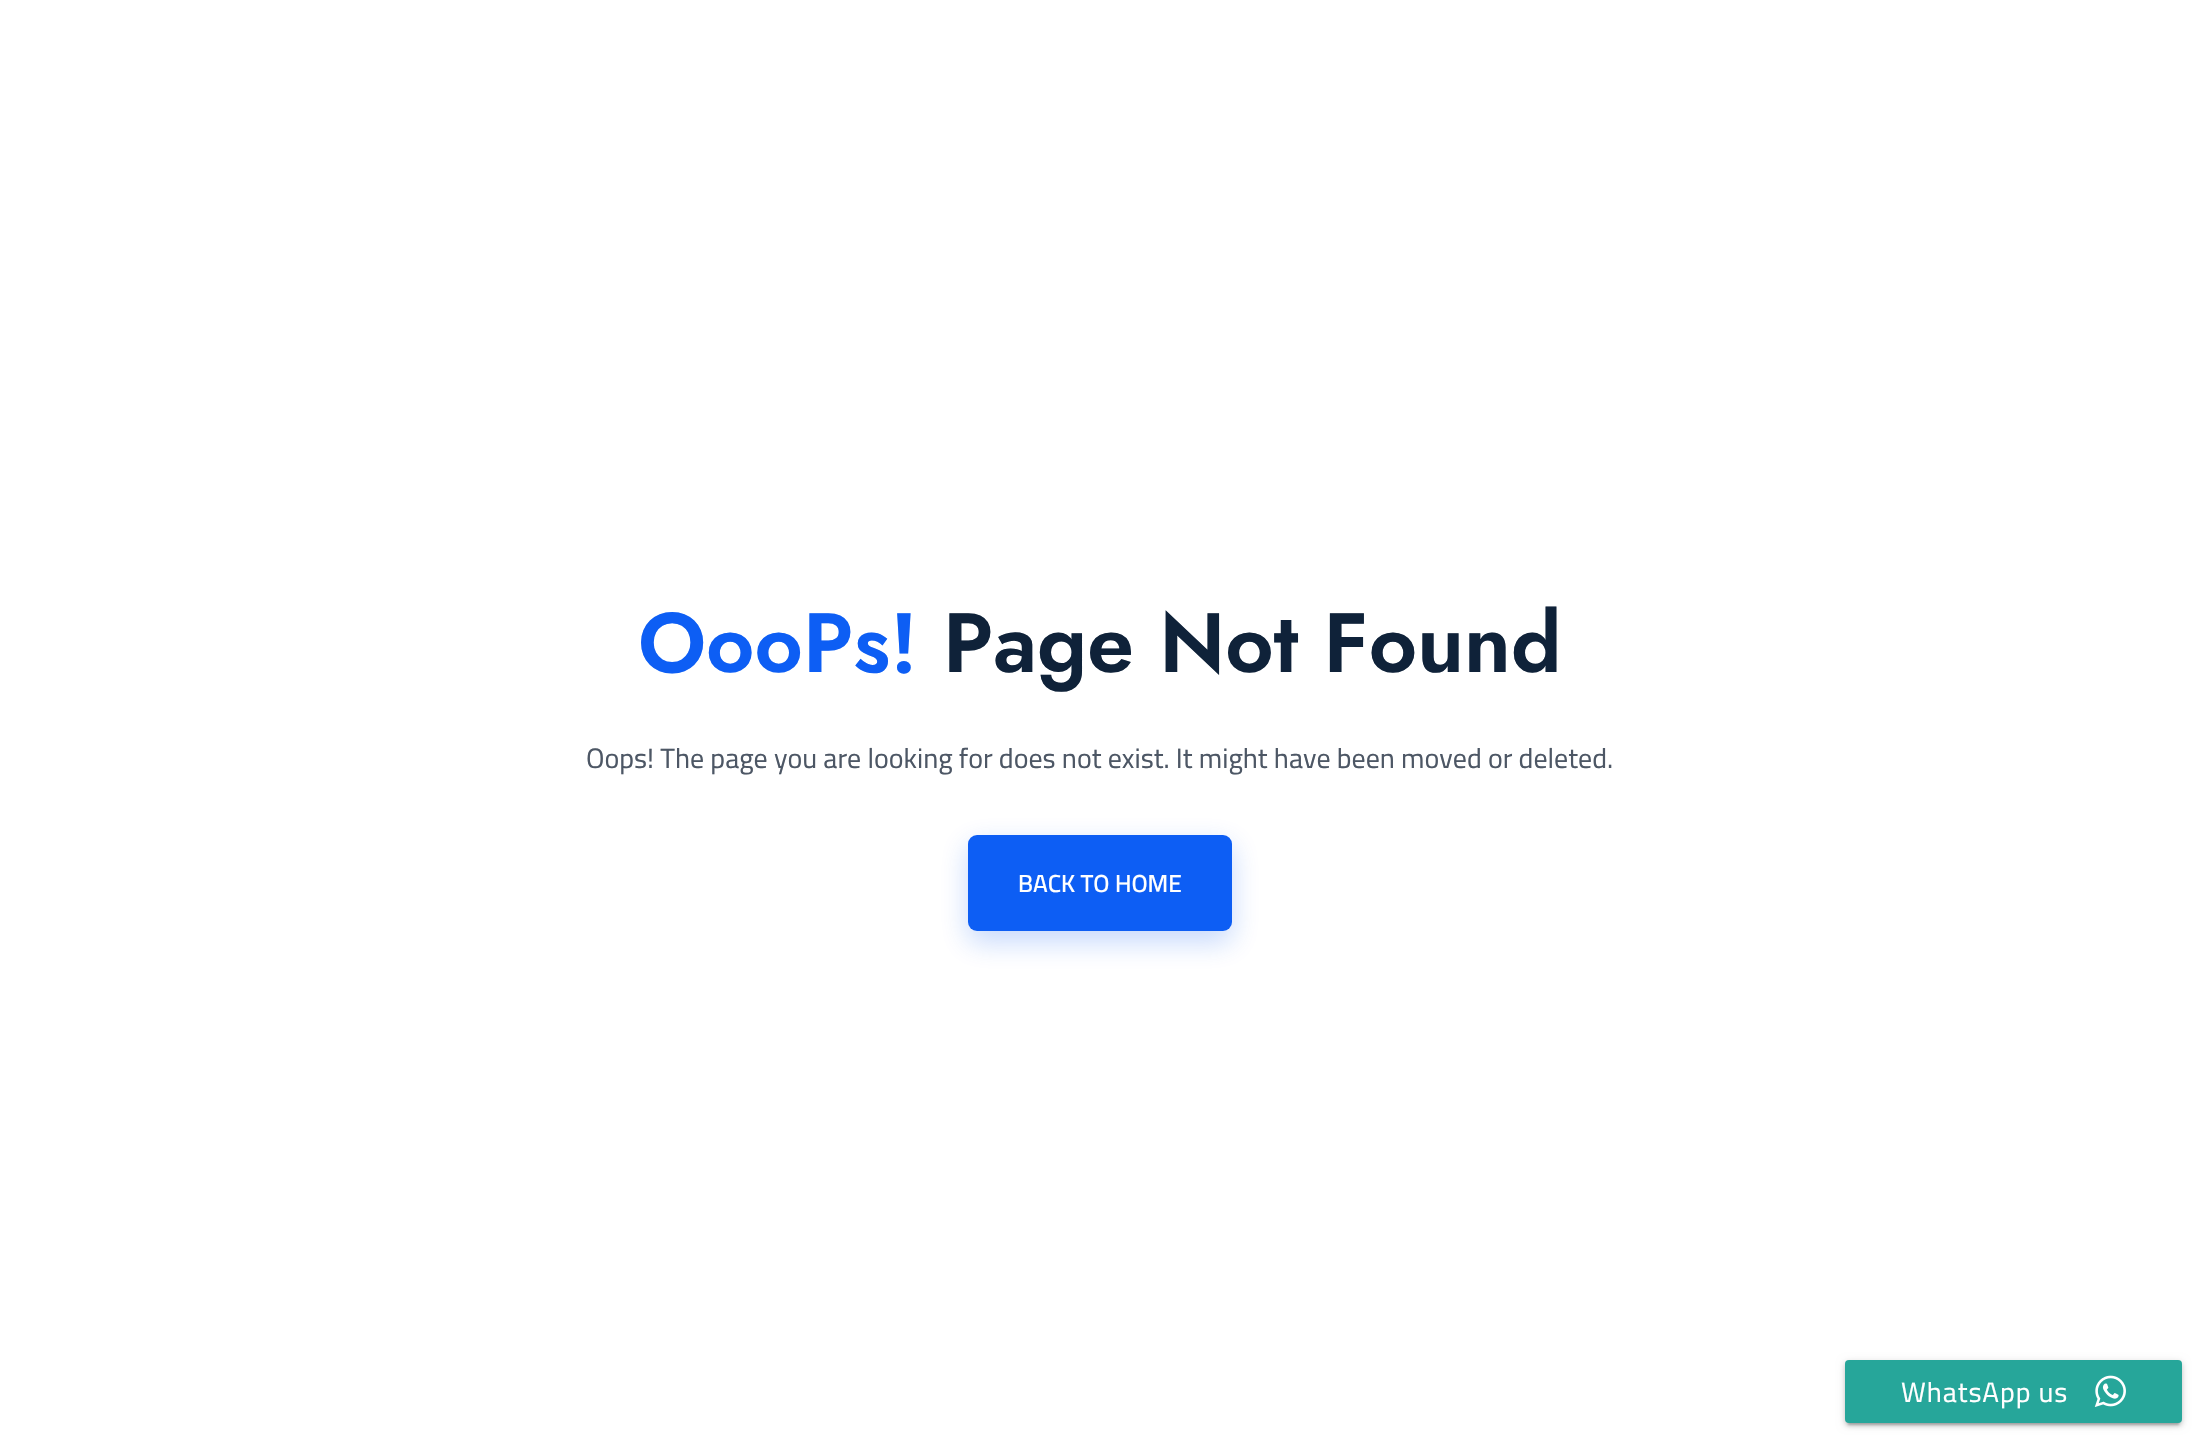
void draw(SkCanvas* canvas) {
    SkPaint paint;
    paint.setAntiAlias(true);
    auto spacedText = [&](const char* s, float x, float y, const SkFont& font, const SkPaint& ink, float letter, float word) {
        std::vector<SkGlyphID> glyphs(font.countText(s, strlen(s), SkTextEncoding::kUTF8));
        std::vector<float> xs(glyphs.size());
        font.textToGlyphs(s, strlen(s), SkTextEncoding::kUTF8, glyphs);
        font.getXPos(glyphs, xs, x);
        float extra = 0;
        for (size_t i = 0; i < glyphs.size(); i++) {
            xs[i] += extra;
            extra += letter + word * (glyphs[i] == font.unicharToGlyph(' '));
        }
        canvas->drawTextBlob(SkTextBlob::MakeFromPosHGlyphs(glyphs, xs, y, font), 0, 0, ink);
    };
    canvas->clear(0xFFFFFFFF);
    SkFont font1(fontMgr->matchFamilyStyle("Jost", SkFontStyle(600, SkFontStyle::kNormal_Width, SkFontStyle::kUpright_Slant)), 84);
    font1.setSubpixel(true);
    paint.setColor(0xFF0D5EF4);
    canvas->drawString("OooPs!", 638, 672, font1, paint);
    paint.setColor(0xFF0F2239);
    canvas->drawString("Page Not Found", 943, 672, font1, paint);
    SkFont font2(fontMgr->matchFamilyStyle("Cairo", SkFontStyle::Normal()), 28);
    font2.setSubpixel(true);
    paint.setColor(0xFF4D5765);
    canvas->drawString("Oops! The page you are looking for does not exist. It might have been moved or deleted.", 586, 768, font2, paint);
    paint.setColor(0x3D0D5EF4);
    paint.setMaskFilter(SkMaskFilter::MakeBlur(kNormal_SkBlurStyle, 14));
    canvas->drawRoundRect(SkRect::MakeXYWH(968, 845, 264, 97), 9, 9, paint);
    paint.setMaskFilter(nullptr);
    paint.setColor(0xFF0D5EF4);
    canvas->drawRoundRect(SkRect::MakeXYWH(968, 835, 264, 96), 9, 9, paint);
    SkFont font3(fontMgr->matchFamilyStyle("Cairo", SkFontStyle(600, SkFontStyle::kNormal_Width, SkFontStyle::kUpright_Slant)), 24.5f);
    font3.setSubpixel(true);
    paint.setColor(0xFFFFFFFF);
    canvas->drawString("BACK TO HOME", 1018, 892, font3, paint);
    paint.setColor(0x33000000);
    paint.setMaskFilter(SkMaskFilter::MakeBlur(kNormal_SkBlurStyle, 1));
    canvas->drawRect(SkRect::MakeXYWH(1848, 1369, 331, 56), paint);
    paint.setMaskFilter(nullptr);
    paint.setColor(0x1F000000);
    paint.setMaskFilter(SkMaskFilter::MakeBlur(kNormal_SkBlurStyle, 4.5f));
    canvas->drawRoundRect(SkRect::MakeXYWH(1845, 1362, 337, 63), 4, 4, paint);
    paint.setMaskFilter(nullptr);
    paint.setColor(0x24000000);
    paint.setMaskFilter(SkMaskFilter::MakeBlur(kNormal_SkBlurStyle, 2));
    canvas->drawRoundRect(SkRect::MakeXYWH(1845, 1363, 337, 63), 4, 4, paint);
    paint.setMaskFilter(nullptr);
    paint.setColor(0xFF26A69A);
    canvas->drawRoundRect(SkRect::MakeXYWH(1845, 1360, 337, 63), 4, 4, paint);
    paint.setColor(0xFFFFFFFF);
    spacedText("WhatsApp us", 1901, 1402, font2, paint, 0.9f, 0);
    canvas->drawImageRect(SkImages::DeferredFromEncodedData(SkData::MakeFromFileName("img1.png")), SkRect::MakeXYWH(2094, 1375, 32, 32), SkSamplingOptions());
}
